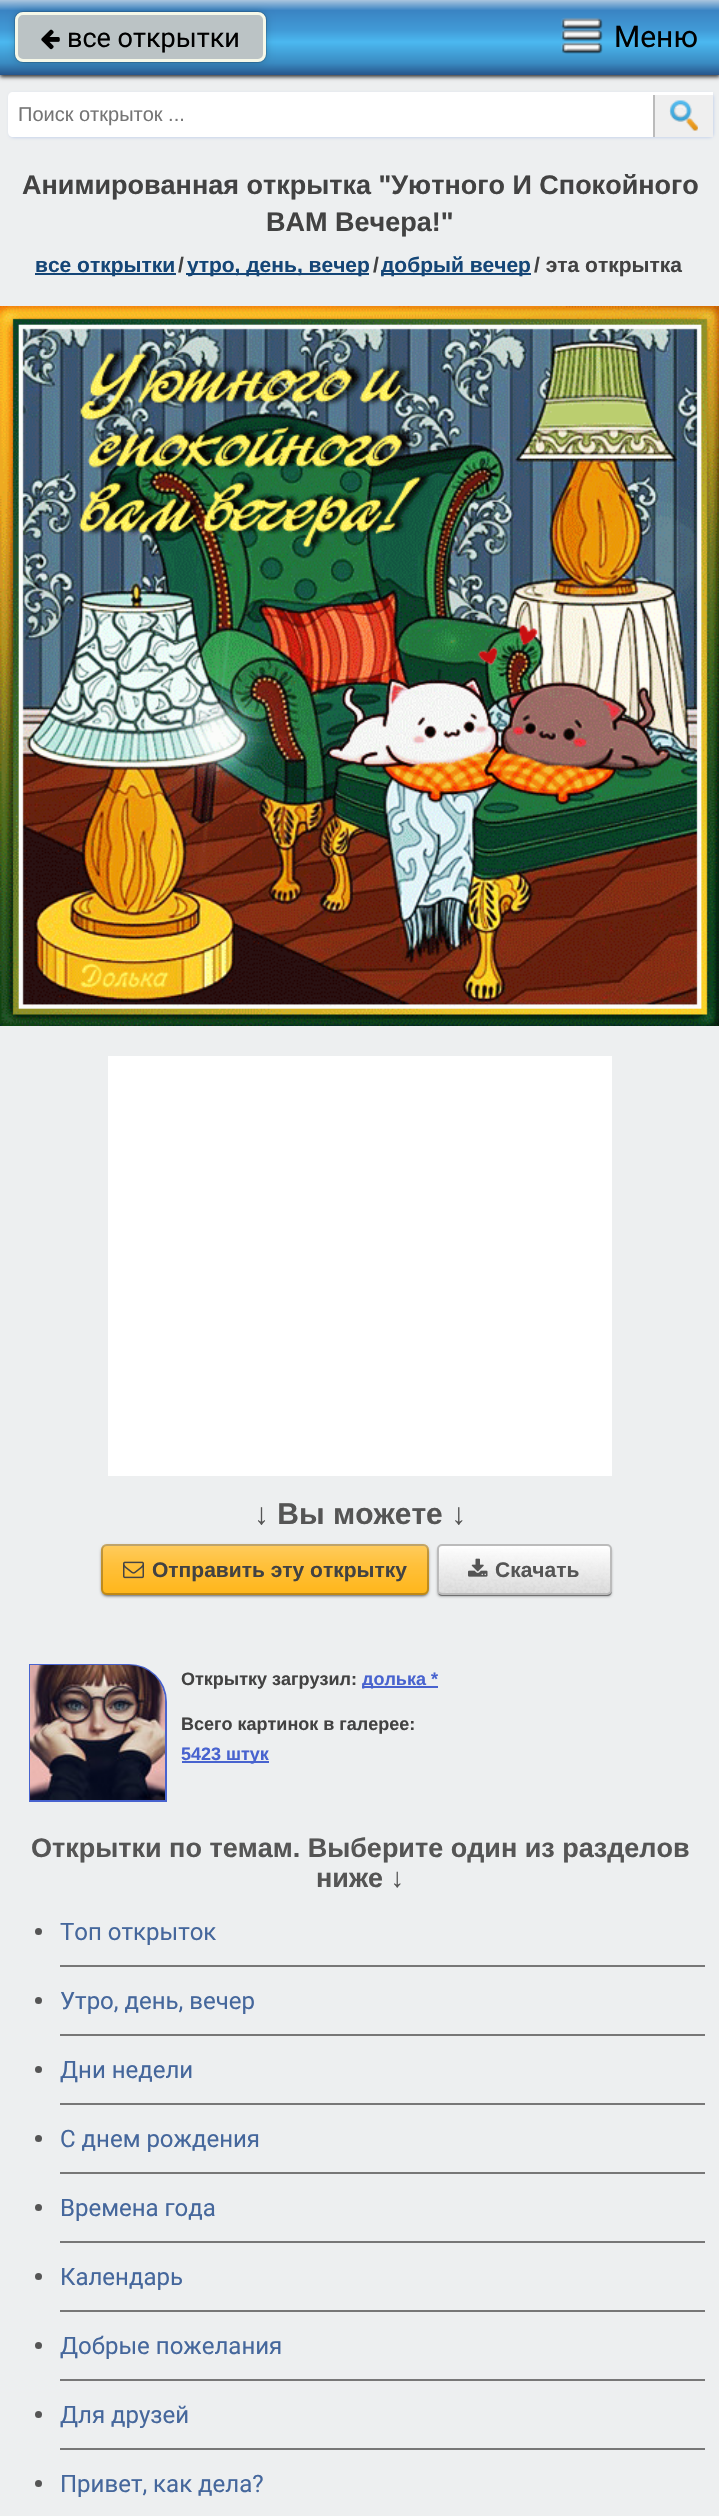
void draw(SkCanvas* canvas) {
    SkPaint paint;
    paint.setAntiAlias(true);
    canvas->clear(0xFFEDEFF0);
    paint.setColor(0xFF333333);
    paint.setMaskFilter(SkMaskFilter::MakeBlur(kNormal_SkBlurStyle, 2));
    canvas->drawRect(SkRect::MakeXYWH(0, 2, 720, 75), paint);
    paint.setMaskFilter(nullptr);
    {
        const SkColor colors[] = {0xFFCEDBE9, 0xFFAAC5DE, 0xFF3A84C3, 0xFF419AD6, 0xFF4BB8F0, 0xFF3A8BC2, 0xFF26558B};
        const float stops[] = {0, 0, 0.14f, 0.4f, 0.56f, 0.84f, 1};
        const SkPoint ends[] = {{360, 0}, {360, 75}};
        paint.setShader(SkGradientShader::MakeLinear(ends, colors, stops, 7, SkTileMode::kClamp));
        paint.setAlpha(255);
    }
    canvas->drawRect(SkRect::MakeXYWH(0, 0, 719, 75), paint);
    paint.setShader(nullptr);
    paint.setColor(0x33000000);
    paint.setMaskFilter(SkMaskFilter::MakeBlur(kNormal_SkBlurStyle, 4.5f));
    canvas->drawRoundRect(SkRect::MakeXYWH(15, 12, 251, 50), 8, 8, paint);
    paint.setMaskFilter(nullptr);
    paint.setStyle(SkPaint::kStroke_Style);
    paint.setStrokeWidth(2);
    paint.setColor(0x26000000);
    canvas->drawRoundRect(SkRect::MakeXYWH(15, 12, 251, 50), 8, 8, paint);
    paint.setStyle(SkPaint::kFill_Style);
    paint.setColor(0xFFBBC3C5);
    canvas->drawRoundRect(SkRect::MakeXYWH(16.5f, 13.5f, 248, 47), 6.5f, 6.5f, paint);
    paint.setStyle(SkPaint::kStroke_Style);
    paint.setStrokeWidth(3);
    paint.setColor(0xFFF6F8E8);
    canvas->drawRoundRect(SkRect::MakeXYWH(16.5f, 13.5f, 248, 47), 6.5f, 6.5f, paint);
    canvas->drawImageRect(SkImages::DeferredFromEncodedData(SkData::MakeFromFileName("img1.png")), SkRect::MakeXYWH(41, 29, 19, 21), SkSamplingOptions());
    SkFont font1(fontMgr->matchFamilyStyle("Roboto", SkFontStyle::Normal()), 27);
    font1.setSubpixel(true);
    paint.setStyle(SkPaint::kFill_Style);
    paint.setColor(0xFF000000);
    canvas->drawString("все открытки", 67, 47, font1, paint);
    canvas->drawImageRect(SkImages::DeferredFromEncodedData(SkData::MakeFromFileName("img2.png")), SkRect::MakeXYWH(561, 17, 42, 37), SkSamplingOptions());
    SkFont font2(fontMgr->matchFamilyStyle("Roboto", SkFontStyle::Normal()), 30);
    font2.setSubpixel(true);
    canvas->drawString("Меню", 614, 47, font2, paint);
    paint.setColor(0xFFC9D5EC);
    paint.setMaskFilter(SkMaskFilter::MakeBlur(kNormal_SkBlurStyle, 1.5f));
    canvas->drawRoundRect(SkRect::MakeXYWH(9, 93, 705, 45), 5, 5, paint);
    paint.setMaskFilter(nullptr);
    paint.setColor(0xFFFFFFFF);
    canvas->drawPath(SkPathBuilder().moveTo(13, 92).lineTo(713, 92).lineTo(713, 137).lineTo(13, 137).cubicTo(10, 137, 8, 135, 8, 132).lineTo(8, 97).cubicTo(8, 94, 10, 92, 13, 92).close().detach(), paint);
    SkFont font3(fontMgr->matchFamilyStyle("Liberation Sans", SkFontStyle::Normal()), 20);
    font3.setSubpixel(true);
    paint.setColor(0xFF757575);
    canvas->drawString("Поиск открыток ...", 18, 121, font3, paint);
    paint.setColor(0xFFEFEFEF);
    canvas->drawRect(SkRect::MakeXYWH(655, 95, 58, 42), paint);
    canvas->drawImageRect(SkImages::DeferredFromEncodedData(SkData::MakeFromFileName("img3.png")), SkRect::MakeXYWH(669, 100, 29, 31), SkSamplingOptions());
    paint.setColor(0xFFBBBBBB);
    canvas->drawRect(SkRect::MakeXYWH(653, 95, 2, 42), paint);
    SkFont font4(fontMgr->matchFamilyStyle("Liberation Sans", SkFontStyle::Bold()), 27);
    font4.setSubpixel(true);
    paint.setColor(0xFF424242);
    canvas->drawString("Анимированная открытка \"Уютного И Спокойного", 22, 194, font4, paint);
    canvas->drawString("ВАМ Вечера!\"", 266, 231, font4, paint);
    paint.setColor(0xFF154677);
    canvas->drawRect(SkRect::MakeXYWH(35, 273, 141, 2), paint);
    SkFont font5(fontMgr->matchFamilyStyle("Liberation Sans", SkFontStyle::Bold()), 21);
    font5.setSubpixel(true);
    canvas->drawString("все открытки", 35, 272, font5, paint);
    paint.setColor(0xFF424242);
    canvas->drawString("/", 178, 272, font5, paint);
    paint.setColor(0xFF154677);
    canvas->drawRect(SkRect::MakeXYWH(186, 273, 183, 2), paint);
    canvas->drawString("утро, день, вечер", 187, 272, font5, paint);
    paint.setColor(0xFF424242);
    canvas->drawString("/", 373, 272, font5, paint);
    paint.setColor(0xFF154677);
    canvas->drawRect(SkRect::MakeXYWH(381, 273, 150, 2), paint);
    canvas->drawString("добрый вечер", 381, 272, font5, paint);
    paint.setColor(0xFF424242);
    canvas->drawString("/ эта открытка", 534, 272, font5, paint);
    canvas->drawImageRect(SkImages::DeferredFromEncodedData(SkData::MakeFromFileName("img4.png")), SkRect::MakeXYWH(0, 306, 719, 720), SkSamplingOptions());
    paint.setColor(0xFFFFFFFF);
    canvas->drawRect(SkRect::MakeXYWH(108, 1056, 504, 420), paint);
    SkFont font6(fontMgr->matchFamilyStyle("Liberation Sans", SkFontStyle::Bold()), 30);
    font6.setSubpixel(true);
    paint.setColor(0xFF555555);
    canvas->drawString("↓ Вы можете ↓", 254, 1524, font6, paint);
    paint.setColor(0x80000000);
    paint.setMaskFilter(SkMaskFilter::MakeBlur(kNormal_SkBlurStyle, 1.5f));
    canvas->drawRoundRect(SkRect::MakeXYWH(102, 1548, 326, 48), 5, 5, paint);
    paint.setMaskFilter(nullptr);
    paint.setColor(0x26000000);
    paint.setMaskFilter(SkMaskFilter::MakeBlur(kNormal_SkBlurStyle, 1.5f));
    canvas->drawRoundRect(SkRect::MakeXYWH(101, 1545, 328, 51), 6, 6, paint);
    paint.setMaskFilter(nullptr);
    paint.setColor(0xFFFFB619);
    canvas->drawRoundRect(SkRect::MakeXYWH(101, 1544, 328, 51), 6, 6, paint);
    {
        const SkColor colors[] = {0x4DFFFFFF, 0x26FFFFFF, 0x00FFFFFF};
        const float stops[] = {0, 0.4f, 1};
        const SkPoint ends[] = {{265, 1544}, {265, 1595}};
        paint.setShader(SkGradientShader::MakeLinear(ends, colors, stops, 3, SkTileMode::kClamp));
        paint.setAlpha(255);
    }
    canvas->drawRoundRect(SkRect::MakeXYWH(101, 1544, 328, 51), 6, 6, paint);
    paint.setShader(nullptr);
    paint.setColor(0x4DFFFFFF);
    canvas->drawPath(SkPathBuilder().moveTo(106, 1546).lineTo(423, 1546).cubicTo(426, 1546, 429, 1549, 429, 1552).lineTo(429, 1550).cubicTo(429, 1547, 426, 1544, 423, 1544).lineTo(107, 1544).cubicTo(104, 1544, 102, 1546, 101, 1549).cubicTo(102, 1547, 104, 1546, 106, 1546).close().detach(), paint);
    paint.setStyle(SkPaint::kStroke_Style);
    paint.setStrokeWidth(2);
    paint.setColor(0x40000000);
    canvas->drawRoundRect(SkRect::MakeXYWH(102, 1545, 326, 49), 5, 5, paint);
    canvas->drawImageRect(SkImages::DeferredFromEncodedData(SkData::MakeFromFileName("img5.png")), SkRect::MakeXYWH(123, 1561, 21, 18), SkSamplingOptions());
    paint.setStyle(SkPaint::kFill_Style);
    paint.setColor(0xFF424242);
    canvas->drawString("Отправить эту открытку", 152, 1577, font5, paint);
    paint.setColor(0x80000000);
    paint.setMaskFilter(SkMaskFilter::MakeBlur(kNormal_SkBlurStyle, 1.5f));
    canvas->drawRoundRect(SkRect::MakeXYWH(438, 1548, 173, 48), 3, 3, paint);
    paint.setMaskFilter(nullptr);
    paint.setColor(0x4D000000);
    canvas->drawPath(SkPathBuilder().moveTo(437, 1592).cubicTo(438, 1594, 440, 1596, 442, 1596).lineTo(607, 1596).cubicTo(610, 1596, 612, 1594, 612, 1591).lineTo(612, 1590).cubicTo(612, 1592, 610, 1594, 608, 1594).lineTo(441, 1594).cubicTo(439, 1594, 438, 1594, 437, 1592).close().detach(), paint);
    paint.setColor(0xFFDDDDDD);
    canvas->drawRoundRect(SkRect::MakeXYWH(438, 1545, 173, 48), 3, 3, paint);
    canvas->drawImageRect(SkImages::DeferredFromEncodedData(SkData::MakeFromFileName("img6.png")), SkRect::MakeXYWH(438, 1545, 172, 48), SkSamplingOptions());
    paint.setColor(0x4DFFFFFF);
    canvas->drawPath(SkPathBuilder().moveTo(441, 1546).lineTo(580, 1546).cubicTo(613, 1546, 610, 1539, 610, 1564).lineTo(610, 1592).cubicTo(611, 1592, 611, 1591, 611, 1590).lineTo(611, 1548).cubicTo(611, 1546, 610, 1545, 608, 1545).lineTo(441, 1545).cubicTo(439, 1545, 438, 1546, 438, 1548).lineTo(438, 1550).cubicTo(438, 1548, 439, 1546, 441, 1546).close().detach(), paint);
    paint.setStyle(SkPaint::kStroke_Style);
    paint.setColor(0xFFBBBBBB);
    canvas->drawRoundRect(SkRect::MakeXYWH(438, 1545, 173, 49), 4, 4, paint);
    canvas->drawImageRect(SkImages::DeferredFromEncodedData(SkData::MakeFromFileName("img7.png")), SkRect::MakeXYWH(468, 1558, 20, 19), SkSamplingOptions());
    paint.setStyle(SkPaint::kFill_Style);
    paint.setColor(0xFF555555);
    canvas->drawString("Скачать", 495, 1577, font5, paint);
    paint.setStyle(SkPaint::kStroke_Style);
    paint.setColor(0xFF4863CF);
    canvas->drawPath(SkPathBuilder().moveTo(30, 1665).lineTo(129, 1665).cubicTo(149.5f, 1665, 166, 1681.5f, 166, 1702).lineTo(166, 1801).lineTo(30, 1801).close().detach(), paint);
    canvas->drawImageRect(SkImages::DeferredFromEncodedData(SkData::MakeFromFileName("img8.png")), SkRect::MakeXYWH(30, 1665, 135, 135), SkSamplingOptions());
    SkFont font7(fontMgr->matchFamilyStyle("Liberation Sans", SkFontStyle::Bold()), 18);
    font7.setSubpixel(true);
    paint.setStyle(SkPaint::kFill_Style);
    paint.setColor(0xFF424242);
    canvas->drawString("Открытку загрузил:", 181, 1685, font7, paint);
    paint.setColor(0xFF4863CF);
    canvas->drawRect(SkRect::MakeXYWH(362, 1686, 76, 2), paint);
    canvas->drawString("долька *", 362, 1685, font7, paint);
    paint.setColor(0xFF424242);
    canvas->drawString("Всего картинок в галерее:", 181, 1730, font7, paint);
    paint.setColor(0xFF4863CF);
    canvas->drawRect(SkRect::MakeXYWH(182, 1761, 87, 2), paint);
    canvas->drawString("5423 штук", 181, 1760, font7, paint);
    paint.setColor(0xFF555555);
    canvas->drawString("Открытки по темам. Выберите один из разделов", 31, 1857, font4, paint);
    canvas->drawString("ниже ↓", 316, 1887, font4, paint);
    paint.setColor(0xFF777777);
    canvas->drawRect(SkRect::MakeXYWH(60, 1965, 645, 2), paint);
    paint.setColor(0xFF555555);
    canvas->drawCircle(38.5f, 1931.5f, 3.5f, paint);
    SkFont font8(fontMgr->matchFamilyStyle("Roboto", SkFontStyle::Normal()), 24);
    font8.setSubpixel(true);
    paint.setColor(0xFF45679C);
    canvas->drawString("Топ открыток", 60, 1940, font8, paint);
    paint.setColor(0xFF777777);
    canvas->drawRect(SkRect::MakeXYWH(60, 2034, 645, 2), paint);
    paint.setColor(0xFF555555);
    canvas->drawCircle(38.5f, 2000.5f, 3.5f, paint);
    paint.setColor(0xFF45679C);
    canvas->drawString("Утро, день, вечер", 60, 2009, font8, paint);
    paint.setColor(0xFF777777);
    canvas->drawRect(SkRect::MakeXYWH(60, 2103, 645, 2), paint);
    paint.setColor(0xFF555555);
    canvas->drawCircle(38.5f, 2069.5f, 3.5f, paint);
    paint.setColor(0xFF45679C);
    canvas->drawString("Дни недели", 60, 2078, font8, paint);
    paint.setColor(0xFF777777);
    canvas->drawRect(SkRect::MakeXYWH(60, 2172, 645, 2), paint);
    paint.setColor(0xFF555555);
    canvas->drawCircle(38.5f, 2138.5f, 3.5f, paint);
    paint.setColor(0xFF45679C);
    canvas->drawString("C днем рождения", 60, 2147, font8, paint);
    paint.setColor(0xFF777777);
    canvas->drawRect(SkRect::MakeXYWH(60, 2241, 645, 2), paint);
    paint.setColor(0xFF555555);
    canvas->drawCircle(38.5f, 2207.5f, 3.5f, paint);
    paint.setColor(0xFF45679C);
    canvas->drawString("Времена года", 60, 2216, font8, paint);
    paint.setColor(0xFF777777);
    canvas->drawRect(SkRect::MakeXYWH(60, 2310, 645, 2), paint);
    paint.setColor(0xFF555555);
    canvas->drawCircle(38.5f, 2276.5f, 3.5f, paint);
    paint.setColor(0xFF45679C);
    canvas->drawString("Календарь", 60, 2285, font8, paint);
    paint.setColor(0xFF777777);
    canvas->drawRect(SkRect::MakeXYWH(60, 2379, 645, 2), paint);
    paint.setColor(0xFF555555);
    canvas->drawCircle(38.5f, 2345.5f, 3.5f, paint);
    paint.setColor(0xFF45679C);
    canvas->drawString("Добрые пожелания", 60, 2354, font8, paint);
    paint.setColor(0xFF777777);
    canvas->drawRect(SkRect::MakeXYWH(60, 2448, 645, 2), paint);
    paint.setColor(0xFF555555);
    canvas->drawCircle(38.5f, 2414.5f, 3.5f, paint);
    paint.setColor(0xFF45679C);
    canvas->drawString("Для друзей", 60, 2423, font8, paint);
    paint.setColor(0xFF555555);
    canvas->drawCircle(38.5f, 2483.5f, 3.5f, paint);
    paint.setColor(0xFF45679C);
    canvas->drawString("Привет, как дела?", 60, 2492, font8, paint);
}
